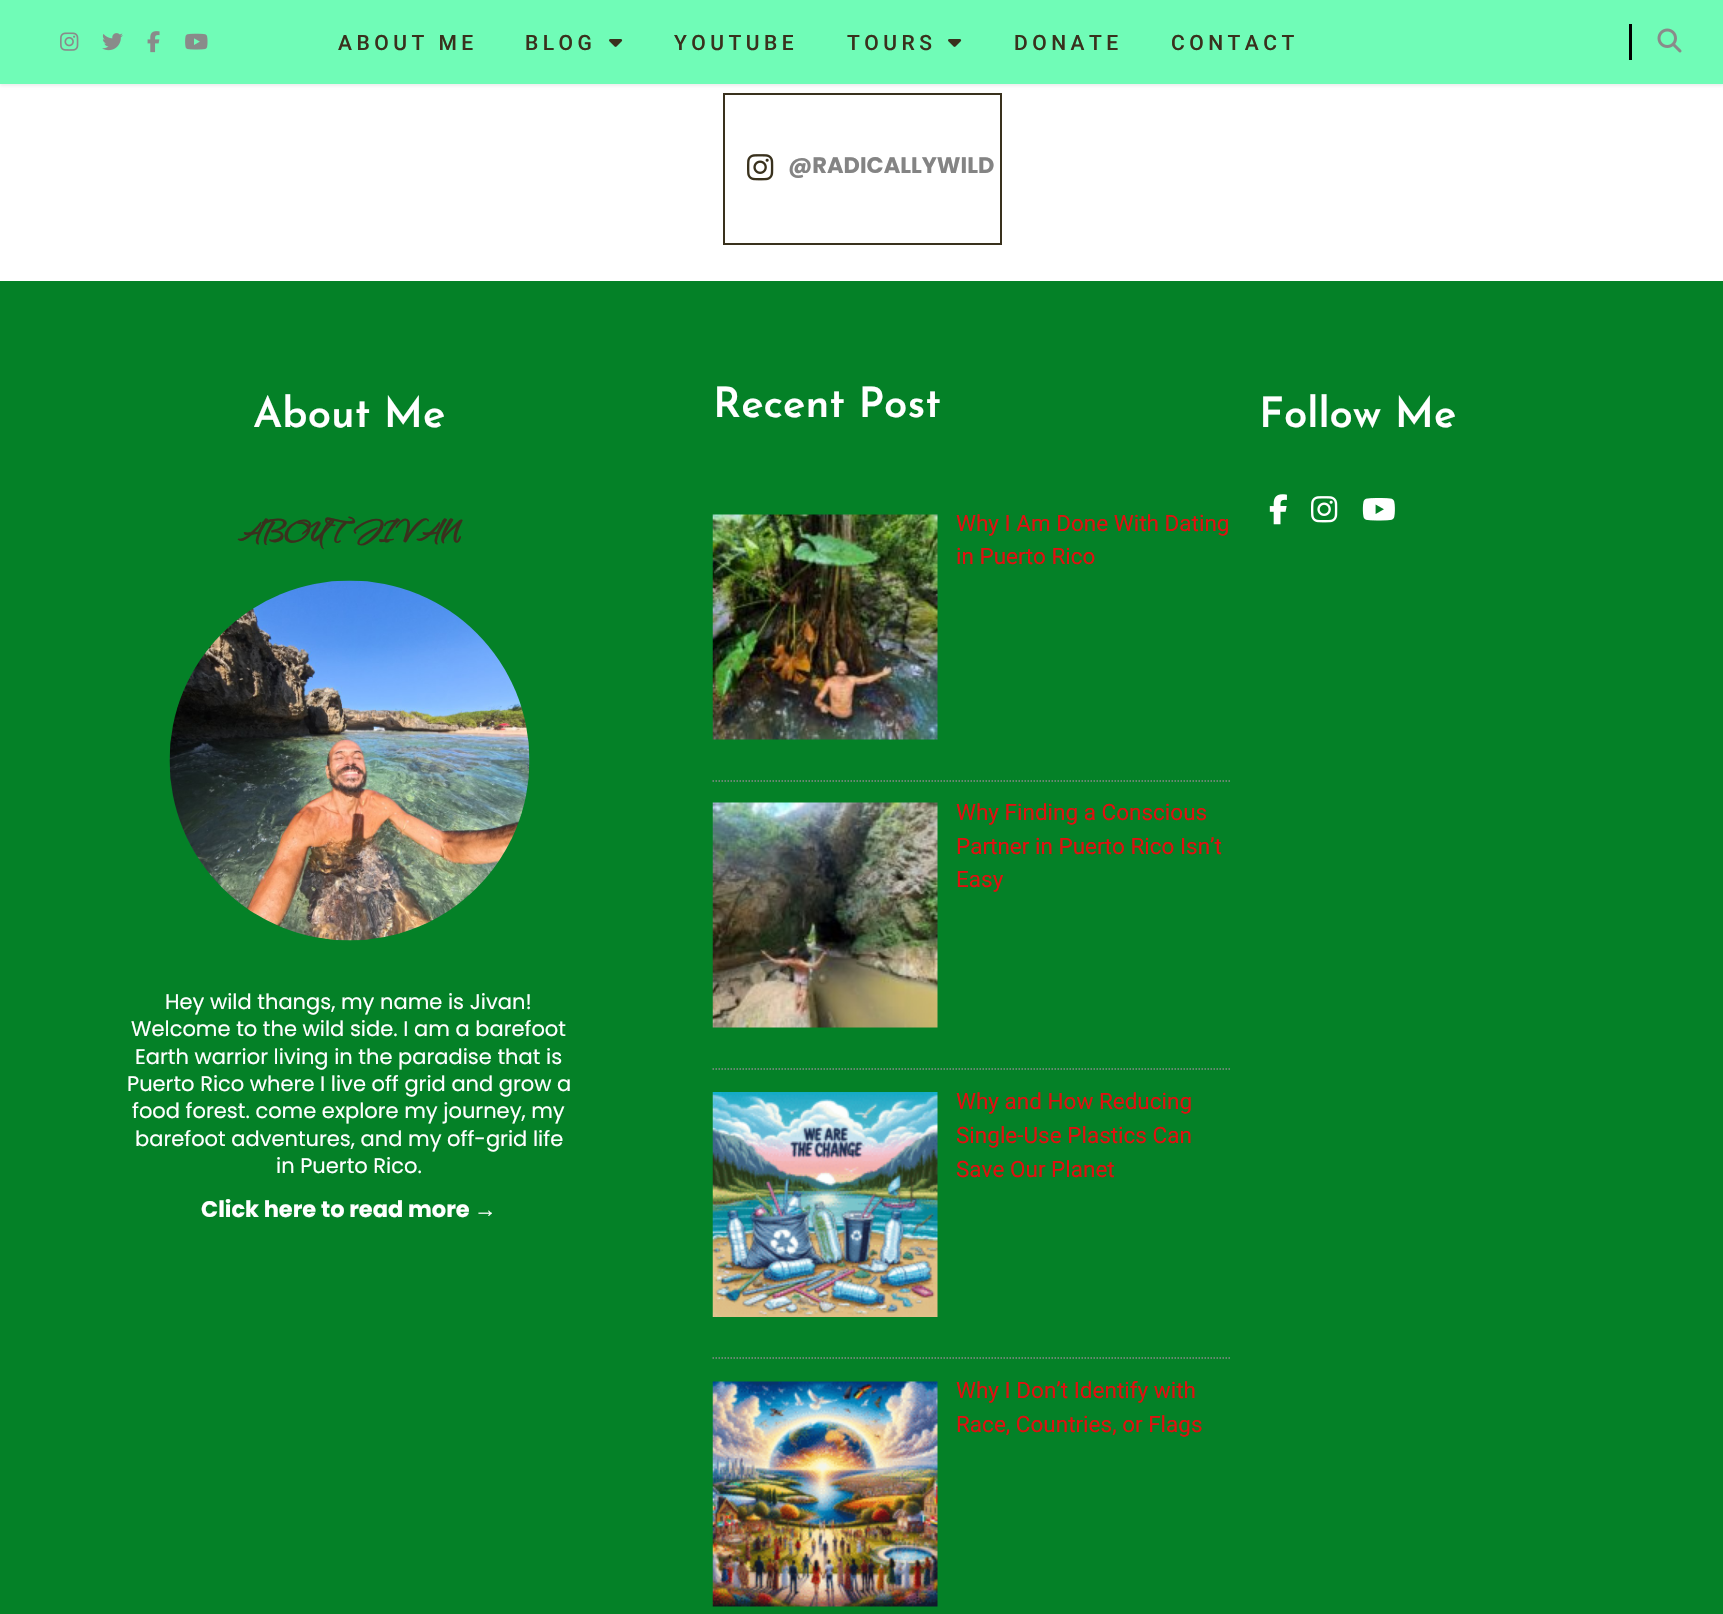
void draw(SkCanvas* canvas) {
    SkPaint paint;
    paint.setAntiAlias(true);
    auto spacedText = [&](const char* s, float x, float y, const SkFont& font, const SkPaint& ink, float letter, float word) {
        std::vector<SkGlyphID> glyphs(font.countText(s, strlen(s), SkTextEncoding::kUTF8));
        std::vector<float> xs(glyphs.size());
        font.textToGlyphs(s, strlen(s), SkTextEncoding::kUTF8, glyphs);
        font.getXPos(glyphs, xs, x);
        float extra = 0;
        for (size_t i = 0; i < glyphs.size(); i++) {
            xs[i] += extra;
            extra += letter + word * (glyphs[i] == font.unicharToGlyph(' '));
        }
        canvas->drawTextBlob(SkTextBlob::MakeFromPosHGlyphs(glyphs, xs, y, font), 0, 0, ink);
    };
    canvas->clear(0xFFFFFFFF);
    paint.setColor(0x12000000);
    paint.setMaskFilter(SkMaskFilter::MakeBlur(kNormal_SkBlurStyle, 1.5f));
    canvas->drawRect(SkRect::MakeXYWH(0, 2, 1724, 84), paint);
    paint.setMaskFilter(nullptr);
    paint.setColor(0xFF70FCB7);
    canvas->drawRect(SkRect::MakeXYWH(0, 0, 1723, 84), paint);
    canvas->drawImageRect(SkImages::DeferredFromEncodedData(SkData::MakeFromFileName("img1.png")), SkRect::MakeXYWH(60, 32, 19, 19), SkSamplingOptions());
    canvas->drawImageRect(SkImages::DeferredFromEncodedData(SkData::MakeFromFileName("img2.png")), SkRect::MakeXYWH(102, 33, 21, 18), SkSamplingOptions());
    canvas->drawImageRect(SkImages::DeferredFromEncodedData(SkData::MakeFromFileName("img3.png")), SkRect::MakeXYWH(147, 31, 13, 22), SkSamplingOptions());
    canvas->drawImageRect(SkImages::DeferredFromEncodedData(SkData::MakeFromFileName("img4.png")), SkRect::MakeXYWH(185, 33, 23, 17), SkSamplingOptions());
    SkFont font1(fontMgr->matchFamilyStyle("Roboto", SkFontStyle(500, SkFontStyle::kNormal_Width, SkFontStyle::kUpright_Slant)), 21);
    font1.setSubpixel(true);
    paint.setColor(0xFF39311D);
    spacedText("ABOUT ME", 338, 50, font1, paint, 4.5f, 0);
    spacedText("BLOG", 525, 50, font1, paint, 4.5f, 0);
    canvas->drawImageRect(SkImages::DeferredFromEncodedData(SkData::MakeFromFileName("img5.png")), SkRect::MakeXYWH(609, 39, 14, 8), SkSamplingOptions());
    spacedText("YOUTUBE", 674, 50, font1, paint, 4.5f, 0);
    spacedText("TOURS", 847, 50, font1, paint, 4.5f, 0);
    canvas->drawImageRect(SkImages::DeferredFromEncodedData(SkData::MakeFromFileName("img5.png")), SkRect::MakeXYWH(948, 39, 14, 8), SkSamplingOptions());
    spacedText("DONATE", 1014, 50, font1, paint, 4.5f, 0);
    spacedText("CONTACT", 1171, 50, font1, paint, 4.5f, 0);
    paint.setColor(0xFF000000);
    canvas->drawRect(SkRect::MakeXYWH(1629, 24, 3, 36), paint);
    canvas->drawImageRect(SkImages::DeferredFromEncodedData(SkData::MakeFromFileName("img6.png")), SkRect::MakeXYWH(1657, 28, 25, 25), SkSamplingOptions());
    paint.setStyle(SkPaint::kStroke_Style);
    paint.setStrokeWidth(2);
    paint.setColor(0xFF39311D);
    canvas->drawRect(SkRect::MakeXYWH(724, 94, 277, 150), paint);
    canvas->drawImageRect(SkImages::DeferredFromEncodedData(SkData::MakeFromFileName("img7.png")), SkRect::MakeXYWH(747, 154, 27, 27), SkSamplingOptions());
    SkFont font2(fontMgr->matchFamilyStyle("Poppins", SkFontStyle::Bold()), 22.5f);
    font2.setSubpixel(true);
    paint.setStyle(SkPaint::kFill_Style);
    paint.setColor(0xFF848484);
    canvas->drawString("@RADICALLYWILD", 788, 173, font2, paint);
    paint.setColor(0xFF048127);
    canvas->drawRect(SkRect::MakeXYWH(0, 281, 1723, 1333), paint);
    SkFont font3(fontMgr->matchFamilyStyle("Josefin Sans", SkFontStyle(600, SkFontStyle::kNormal_Width, SkFontStyle::kUpright_Slant)), 42);
    font3.setSubpixel(true);
    paint.setColor(0xFFFFFFFF);
    canvas->drawString("About Me", 253, 427, font3, paint);
    SkFont font4(fontMgr->matchFamilyStyle("Qwigley", SkFontStyle::Bold()), 42);
    font4.setSubpixel(true);
    paint.setColor(0xFF39311D);
    canvas->drawString("ABOUT JIVAN", 237, 541, font4, paint);
    canvas->drawImageRect(SkImages::DeferredFromEncodedData(SkData::MakeFromFileName("img8.png")), SkRect::MakeXYWH(169, 580, 361, 361), SkSamplingOptions());
    SkFont font5(fontMgr->matchFamilyStyle("Poppins", SkFontStyle::Normal()), 21);
    font5.setSubpixel(true);
    paint.setColor(0xFFFFFFFF);
    canvas->drawString("Hey wild thangs, my name is Jivan!", 165, 1009, font5, paint);
    canvas->drawString("Welcome to the wild side. I am a barefoot", 131, 1036, font5, paint);
    canvas->drawString("Earth warrior living in the paradise that is", 135, 1064, font5, paint);
    canvas->drawString("Puerto Rico where I live off grid and grow a", 127, 1091, font5, paint);
    canvas->drawString("food forest. come explore my journey, my", 132, 1118, font5, paint);
    canvas->drawString("barefoot adventures, and my off-grid life", 135, 1146, font5, paint);
    canvas->drawString("in Puerto Rico.", 276, 1173, font5, paint);
    canvas->drawString("Click here to read more", 201, 1217, font2, paint);
    SkFont font6(fontMgr->matchFamilyStyle("Liberation Serif", SkFontStyle::Bold()), 22.5f);
    font6.setSubpixel(true);
    canvas->drawString("→", 474, 1217, font6, paint);
    canvas->drawString("Recent Post", 713, 417, font3, paint);
    paint.setStyle(SkPaint::kStroke_Style);
    paint.setStrokeWidth(1.5f);
    paint.setColor(0xFF898B8A);
    paint.setPathEffect(SkDashPathEffect::Make({{1.5f, 1.5f}}, 0));
    canvas->drawPath(SkPathBuilder().moveTo(712.5f, 781).lineTo(1230, 781).detach(), paint);
    paint.setPathEffect(nullptr);
    canvas->drawImageRect(SkImages::DeferredFromEncodedData(SkData::MakeFromFileName("img9.png")), SkRect::MakeXYWH(712, 514, 226, 226), SkSamplingOptions());
    SkFont font7(fontMgr->matchFamilyStyle("Roboto", SkFontStyle::Normal()), 22.5f);
    font7.setSubpixel(true);
    paint.setStyle(SkPaint::kFill_Style);
    paint.setColor(0xFFE01010);
    canvas->drawString("Why I Am Done With Dating", 956, 531, font7, paint);
    canvas->drawString("in Puerto Rico", 956, 564, font7, paint);
    paint.setStyle(SkPaint::kStroke_Style);
    paint.setColor(0xFF898B8A);
    paint.setPathEffect(SkDashPathEffect::Make({{1.5f, 1.5f}}, 0));
    canvas->drawPath(SkPathBuilder().moveTo(712.5f, 1069).lineTo(1230, 1069).detach(), paint);
    paint.setPathEffect(nullptr);
    canvas->drawImageRect(SkImages::DeferredFromEncodedData(SkData::MakeFromFileName("img10.png")), SkRect::MakeXYWH(712, 802, 226, 226), SkSamplingOptions());
    paint.setStyle(SkPaint::kFill_Style);
    paint.setColor(0xFFE01010);
    canvas->drawString("Why Finding a Conscious", 956, 820, font7, paint);
    canvas->drawString("Partner in Puerto Rico Isn’t", 956, 854, font7, paint);
    canvas->drawString("Easy", 956, 887, font7, paint);
    paint.setStyle(SkPaint::kStroke_Style);
    paint.setColor(0xFF898B8A);
    paint.setPathEffect(SkDashPathEffect::Make({{1.5f, 1.5f}}, 0));
    canvas->drawPath(SkPathBuilder().moveTo(712.5f, 1358).lineTo(1230, 1358).detach(), paint);
    paint.setPathEffect(nullptr);
    canvas->drawImageRect(SkImages::DeferredFromEncodedData(SkData::MakeFromFileName("img11.png")), SkRect::MakeXYWH(712, 1092, 226, 225), SkSamplingOptions());
    paint.setStyle(SkPaint::kFill_Style);
    paint.setColor(0xFFE01010);
    canvas->drawString("Why and How Reducing", 956, 1109, font7, paint);
    canvas->drawString("Single-Use Plastics Can", 956, 1143, font7, paint);
    canvas->drawString("Save Our Planet", 956, 1177, font7, paint);
    canvas->drawImageRect(SkImages::DeferredFromEncodedData(SkData::MakeFromFileName("img12.png")), SkRect::MakeXYWH(712, 1381, 226, 226), SkSamplingOptions());
    canvas->drawString("Why I Don’t Identify with", 956, 1398, font7, paint);
    canvas->drawString("Race, Countries, or Flags", 956, 1432, font7, paint);
    paint.setColor(0xFFFFFFFF);
    canvas->drawString("Follow Me", 1259, 427, font3, paint);
    canvas->drawImageRect(SkImages::DeferredFromEncodedData(SkData::MakeFromFileName("img13.png")), SkRect::MakeXYWH(1269, 494, 18, 31), SkSamplingOptions());
    canvas->drawImageRect(SkImages::DeferredFromEncodedData(SkData::MakeFromFileName("img14.png")), SkRect::MakeXYWH(1311, 496, 27, 27), SkSamplingOptions());
    canvas->drawImageRect(SkImages::DeferredFromEncodedData(SkData::MakeFromFileName("img15.png")), SkRect::MakeXYWH(1362, 498, 33, 23), SkSamplingOptions());
}
